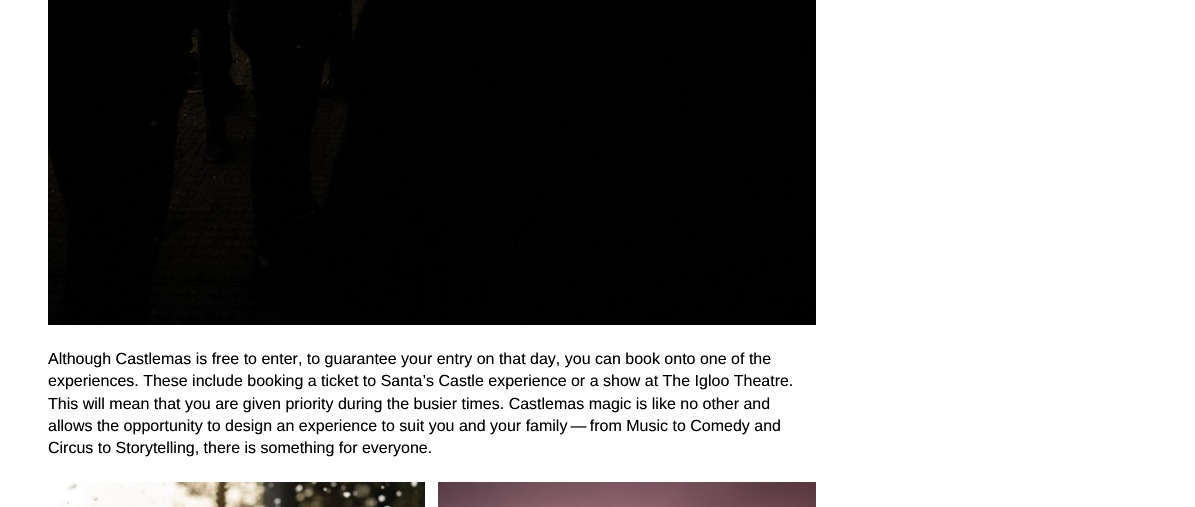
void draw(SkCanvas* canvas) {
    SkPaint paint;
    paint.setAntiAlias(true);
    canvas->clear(0xFFFFFFFF);
    canvas->drawImageRect(SkImages::DeferredFromEncodedData(SkData::MakeFromFileName("img1.png")), SkRect::MakeXYWH(48, 0, 768, 325), SkSamplingOptions());
    SkFont font1(fontMgr->matchFamilyStyle("Liberation Sans", SkFontStyle::Normal()), 16);
    font1.setSubpixel(true);
    paint.setColor(0xFF000000);
    canvas->drawString("Although Castlemas is free to enter, to guarantee your entry on that day, you can book onto one of the", 48, 364, font1, paint);
    canvas->drawString("experiences. These include booking a ticket to Santa’s Castle experience or a show at The Igloo Theatre.", 48, 386, font1, paint);
    canvas->drawString("This will mean that you are given priority during the busier times. Castlemas magic is like no other and", 48, 409, font1, paint);
    canvas->drawString("allows the opportunity to design an experience to suit you and your family — from Music to Comedy and", 48, 431, font1, paint);
    canvas->drawString("Circus to Storytelling, there is something for everyone.", 48, 453, font1, paint);
    canvas->drawImageRect(SkImages::DeferredFromEncodedData(SkData::MakeFromFileName("img2.png")), SkRect::MakeXYWH(58, 482, 367, 25), SkSamplingOptions());
    canvas->drawImageRect(SkImages::DeferredFromEncodedData(SkData::MakeFromFileName("img3.png")), SkRect::MakeXYWH(438, 482, 378, 25), SkSamplingOptions());
}
